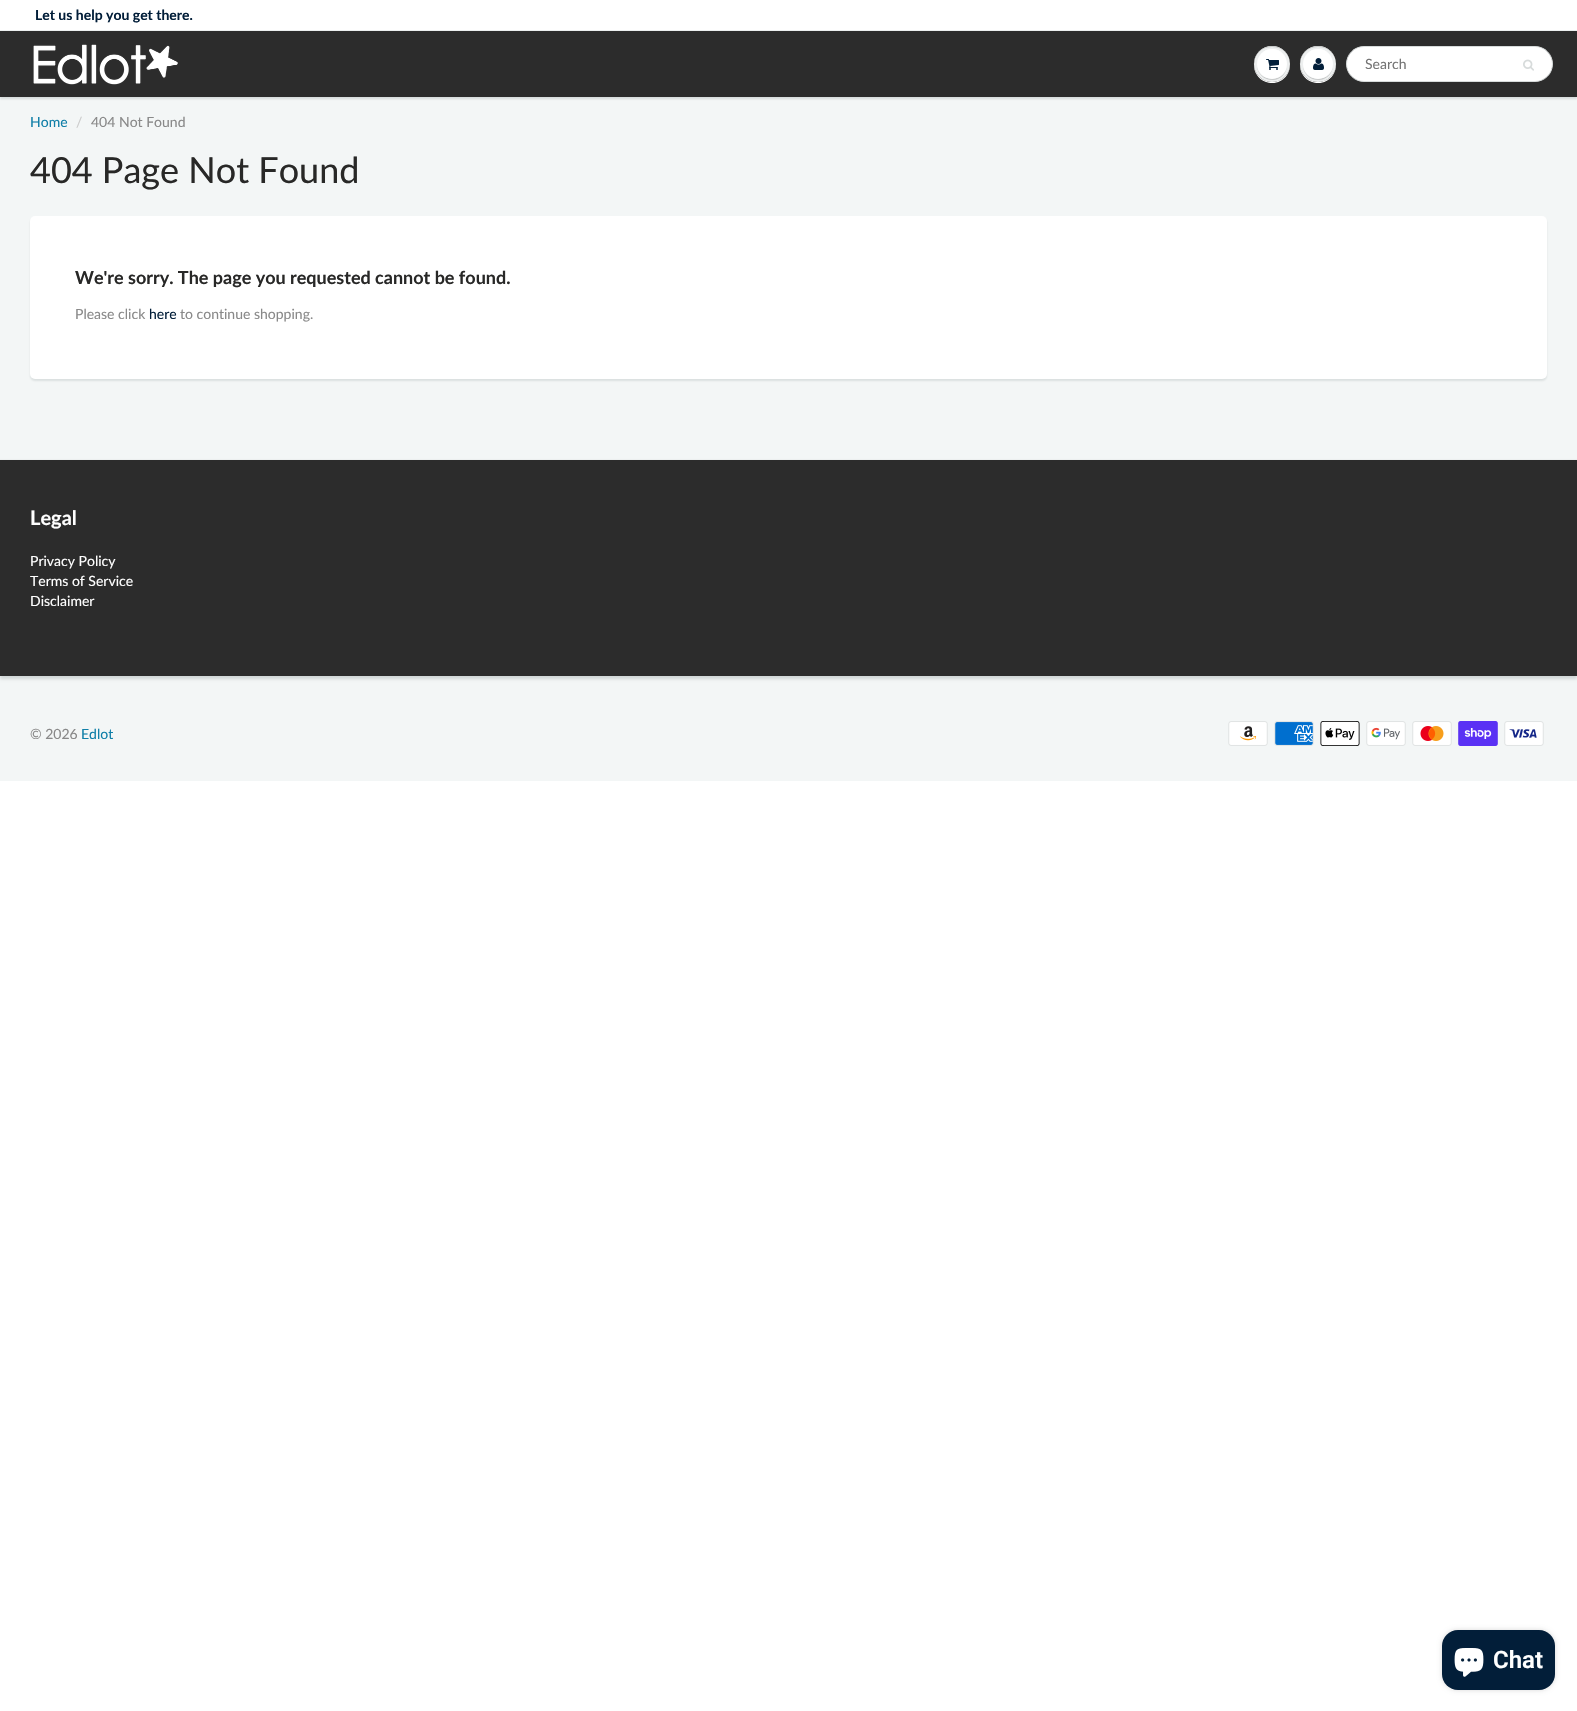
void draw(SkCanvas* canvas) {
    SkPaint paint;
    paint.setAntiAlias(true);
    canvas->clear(0xFFFFFFFF);
    SkFont font1(fontMgr->matchFamilyStyle("Lato", SkFontStyle::Bold()), 14);
    font1.setSubpixel(true);
    paint.setColor(0xFF021E39);
    canvas->drawString("Let us help you get there.", 35, 20, font1, paint);
    paint.setColor(0xFFF3F6F6);
    canvas->drawRect(SkRect::MakeXYWH(0, 97, 1577, 362), paint);
    paint.setColor(0x1F0B191C);
    paint.setMaskFilter(SkMaskFilter::MakeBlur(kNormal_SkBlurStyle, 1));
    canvas->drawRect(SkRect::MakeXYWH(0, 32, 1577, 67), paint);
    paint.setMaskFilter(nullptr);
    paint.setColor(0xFF2C2C2C);
    canvas->drawRect(SkRect::MakeXYWH(0, 31, 1577, 66), paint);
    paint.setColor(0xFFECEFEF);
    canvas->drawRect(SkRect::MakeXYWH(0, 30, 1577, 1), paint);
    canvas->drawImageRect(SkImages::DeferredFromEncodedData(SkData::MakeFromFileName("img1.png")), SkRect::MakeXYWH(33, 44, 145, 41), SkSamplingOptions());
    paint.setColor(0xFFFFFFFF);
    canvas->drawPath(SkPathBuilder().moveTo(1290, 64.5f).cubicTo(1289.5f, 74, 1282, 82, 1272, 82).cubicTo(1262, 82, 1254.5f, 74, 1254, 64.5f).cubicTo(1253.5f, 82.5f, 1277, 90, 1287, 75).cubicTo(1289, 72, 1290, 68, 1290, 64.5f).close().detach(), paint);
    paint.setColor(0xFFEDEFEF);
    canvas->drawCircle(1272, 64, 18, paint);
    paint.setColor(0xFFC9CBCB);
    canvas->drawPath(SkPathBuilder().moveTo(1272, 47).cubicTo(1284, 47, 1290, 55.5f, 1290, 64.5f).cubicTo(1290, 61, 1289, 57, 1287, 54).cubicTo(1277, 39, 1253.5f, 46.5f, 1254, 64.5f).cubicTo(1254, 55.5f, 1260, 47, 1272, 47).close().detach(), paint);
    canvas->drawPath(SkPathBuilder().moveTo(1287, 64.5f).cubicTo(1286.5f, 83.5f, 1257.5f, 83.5f, 1257, 64.5f).cubicTo(1256.5f, 79.5f, 1276, 86, 1284.5f, 73.5f).cubicTo(1286, 71, 1287, 67.5f, 1287, 64.5f).close().detach(), paint);
    paint.setColor(0xFFFFFFFF);
    canvas->drawCircle(1272, 64, 15, paint);
    canvas->drawPath(SkPathBuilder().moveTo(1272, 50).cubicTo(1282, 50, 1287, 57, 1287, 64.5f).cubicTo(1287, 61.5f, 1286, 58, 1284.5f, 55.5f).cubicTo(1276, 43, 1256.5f, 49.5f, 1257, 64.5f).cubicTo(1257, 57, 1262, 50, 1272, 50).close().detach(), paint);
    canvas->drawImageRect(SkImages::DeferredFromEncodedData(SkData::MakeFromFileName("img2.png")), SkRect::MakeXYWH(1266, 59, 13, 11), SkSamplingOptions());
    canvas->drawPath(SkPathBuilder().moveTo(1336, 64.5f).cubicTo(1335.5f, 74, 1328, 82, 1318, 82).cubicTo(1308, 82, 1300.5f, 74, 1300, 64.5f).cubicTo(1299.5f, 82.5f, 1323, 90, 1333, 75).cubicTo(1335, 72, 1336, 68, 1336, 64.5f).close().detach(), paint);
    paint.setColor(0xFFEDEFEF);
    canvas->drawCircle(1318, 64, 18, paint);
    paint.setColor(0xFFC9CBCB);
    canvas->drawPath(SkPathBuilder().moveTo(1318, 47).cubicTo(1330, 47, 1336, 55.5f, 1336, 64.5f).cubicTo(1336, 61, 1335, 57, 1333, 54).cubicTo(1323, 39, 1299.5f, 46.5f, 1300, 64.5f).cubicTo(1300, 55.5f, 1306, 47, 1318, 47).close().detach(), paint);
    canvas->drawPath(SkPathBuilder().moveTo(1333, 64.5f).cubicTo(1332.5f, 83.5f, 1303.5f, 83.5f, 1303, 64.5f).cubicTo(1302.5f, 79.5f, 1322, 86, 1330.5f, 73.5f).cubicTo(1332, 71, 1333, 67.5f, 1333, 64.5f).close().detach(), paint);
    paint.setColor(0xFFFFFFFF);
    canvas->drawCircle(1318, 64, 15, paint);
    canvas->drawPath(SkPathBuilder().moveTo(1318, 50).cubicTo(1328, 50, 1333, 57, 1333, 64.5f).cubicTo(1333, 61.5f, 1332, 58, 1330.5f, 55.5f).cubicTo(1322, 43, 1302.5f, 49.5f, 1303, 64.5f).cubicTo(1303, 57, 1308, 50, 1318, 50).close().detach(), paint);
    canvas->drawImageRect(SkImages::DeferredFromEncodedData(SkData::MakeFromFileName("img3.png")), SkRect::MakeXYWH(1313, 58, 11, 12), SkSamplingOptions());
    canvas->drawRoundRect(SkRect::MakeXYWH(1346.5f, 46.5f, 206, 35), 17.5f, 17.5f, paint);
    paint.setStyle(SkPaint::kStroke_Style);
    paint.setStrokeWidth(1);
    paint.setColor(0xFFD7DBDB);
    canvas->drawRoundRect(SkRect::MakeXYWH(1346.5f, 46.5f, 206, 35), 17.5f, 17.5f, paint);
    SkFont font2(fontMgr->matchFamilyStyle("Lato", SkFontStyle::Normal()), 14);
    font2.setSubpixel(true);
    paint.setStyle(SkPaint::kFill_Style);
    paint.setColor(0xFF757575);
    canvas->drawString("Search", 1365, 69, font2, paint);
    canvas->drawImageRect(SkImages::DeferredFromEncodedData(SkData::MakeFromFileName("img4.png")), SkRect::MakeXYWH(1523, 59, 11, 12), SkSamplingOptions());
    paint.setColor(0xFF107FA8);
    canvas->drawString("Home", 30, 127, font2, paint);
    paint.setColor(0xFFCCCCCC);
    canvas->drawString("/", 76, 127, font2, paint);
    paint.setColor(0xFF898989);
    canvas->drawString("404 Not Found", 91, 127, font2, paint);
    SkFont font3(fontMgr->matchFamilyStyle("Lato", SkFontStyle::Normal()), 36);
    font3.setSubpixel(true);
    paint.setColor(0xFF282827);
    canvas->drawString("404 Page Not Found", 30, 183, font3, paint);
    paint.setColor(0x1A0B191C);
    paint.setMaskFilter(SkMaskFilter::MakeBlur(kNormal_SkBlurStyle, 1));
    canvas->drawRoundRect(SkRect::MakeXYWH(30, 218, 1517, 163), 5, 5, paint);
    paint.setMaskFilter(nullptr);
    paint.setColor(0xFFFFFFFF);
    canvas->drawRoundRect(SkRect::MakeXYWH(30, 216, 1517, 163), 5, 5, paint);
    SkFont font4(fontMgr->matchFamilyStyle("Lato", SkFontStyle::Bold()), 18);
    font4.setSubpixel(true);
    paint.setColor(0xFF282827);
    canvas->drawString("We're sorry. The page you requested cannot be found.", 75, 284, font4, paint);
    paint.setColor(0xFF898989);
    canvas->drawString("Please click", 75, 319, font2, paint);
    paint.setColor(0xFF021E39);
    canvas->drawString("here", 149, 319, font2, paint);
    paint.setColor(0xFF898989);
    canvas->drawString("to continue shopping.", 180, 319, font2, paint);
    paint.setColor(0xFFF3F6F6);
    canvas->drawRect(SkRect::MakeXYWH(0, 676, 1577, 105), paint);
    paint.setColor(0xFFD1D7D7);
    paint.setMaskFilter(SkMaskFilter::MakeBlur(kNormal_SkBlurStyle, 1.5f));
    canvas->drawRect(SkRect::MakeXYWH(0, 462, 1577, 217), paint);
    paint.setMaskFilter(nullptr);
    paint.setColor(0xFF2C2C2C);
    canvas->drawRect(SkRect::MakeXYWH(0, 460, 1577, 216), paint);
    paint.setColor(0xFFECEFEF);
    canvas->drawRect(SkRect::MakeXYWH(0, 459, 1577, 1), paint);
    SkFont font5(fontMgr->matchFamilyStyle("Lato", SkFontStyle::Bold()), 20);
    font5.setSubpixel(true);
    paint.setColor(0xFFFFFFFF);
    canvas->drawString("Legal", 30, 525, font5, paint);
    canvas->drawString("Privacy Policy", 30, 566, font2, paint);
    canvas->drawString("Terms of Service", 30, 586, font2, paint);
    canvas->drawString("Disclaimer", 30, 606, font2, paint);
    paint.setColor(0xFF898989);
    canvas->drawString("© 2026", 30, 739, font2, paint);
    paint.setColor(0xFF107FA8);
    canvas->drawString("Edlot", 81, 739, font2, paint);
    canvas->drawImageRect(SkImages::DeferredFromEncodedData(SkData::MakeFromFileName("img5.png")), SkRect::MakeXYWH(1228, 721, 40, 25), SkSamplingOptions());
    canvas->drawImageRect(SkImages::DeferredFromEncodedData(SkData::MakeFromFileName("img6.png")), SkRect::MakeXYWH(1274, 721, 40, 25), SkSamplingOptions());
    canvas->drawImageRect(SkImages::DeferredFromEncodedData(SkData::MakeFromFileName("img7.png")), SkRect::MakeXYWH(1320, 721, 40, 25), SkSamplingOptions());
    canvas->drawImageRect(SkImages::DeferredFromEncodedData(SkData::MakeFromFileName("img8.png")), SkRect::MakeXYWH(1366, 721, 40, 25), SkSamplingOptions());
    canvas->drawImageRect(SkImages::DeferredFromEncodedData(SkData::MakeFromFileName("img9.png")), SkRect::MakeXYWH(1412, 721, 40, 25), SkSamplingOptions());
    canvas->drawImageRect(SkImages::DeferredFromEncodedData(SkData::MakeFromFileName("img10.png")), SkRect::MakeXYWH(1458, 721, 40, 25), SkSamplingOptions());
    canvas->drawImageRect(SkImages::DeferredFromEncodedData(SkData::MakeFromFileName("img11.png")), SkRect::MakeXYWH(1504, 721, 40, 25), SkSamplingOptions());
    paint.setColor(0x26000000);
    paint.setMaskFilter(SkMaskFilter::MakeBlur(kNormal_SkBlurStyle, 2.5f));
    canvas->drawRoundRect(SkRect::MakeXYWH(1442, 1630, 113, 60), 16, 16, paint);
    paint.setMaskFilter(nullptr);
    paint.setColor(0xFF021E39);
    canvas->drawRoundRect(SkRect::MakeXYWH(1442, 1630, 113, 60), 16, 16, paint);
    canvas->drawImageRect(SkImages::DeferredFromEncodedData(SkData::MakeFromFileName("img12.png")), SkRect::MakeXYWH(1454, 1648, 30, 29), SkSamplingOptions());
    SkFont font6(fontMgr->matchFamilyStyle("Roboto", SkFontStyle(600, SkFontStyle::kNormal_Width, SkFontStyle::kUpright_Slant)), 24);
    font6.setSubpixel(true);
    paint.setColor(0xFFFFFFFF);
    canvas->drawString("Chat", 1493, 1668, font6, paint);
}
